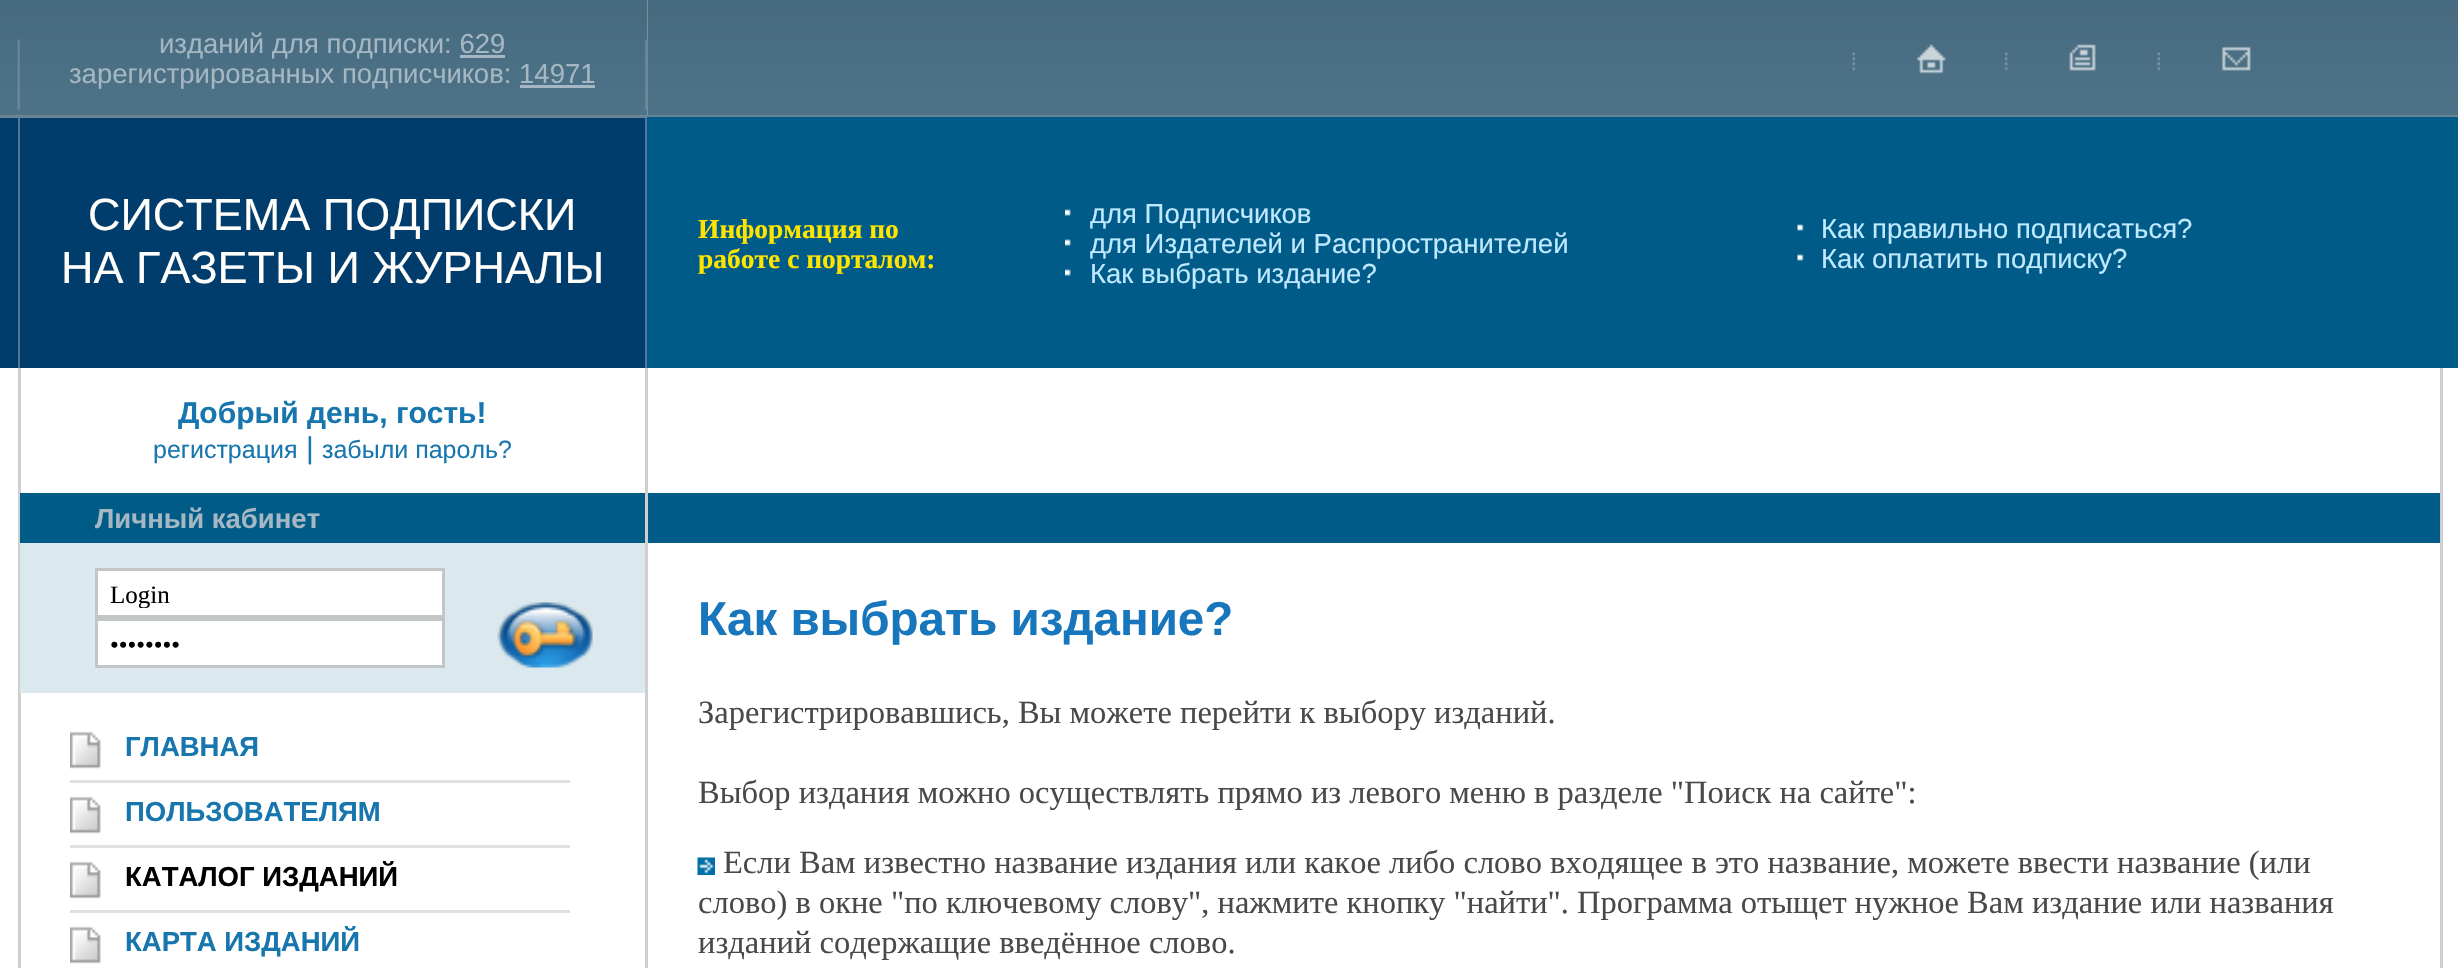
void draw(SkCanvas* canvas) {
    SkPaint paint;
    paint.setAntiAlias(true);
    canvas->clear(0xFFFFFFFF);
    canvas->drawImageRect(SkImages::DeferredFromEncodedData(SkData::MakeFromFileName("img1.png")), SkRect::MakeXYWH(0, 0, 648, 115), SkSamplingOptions());
    canvas->drawImageRect(SkImages::DeferredFromEncodedData(SkData::MakeFromFileName("img2.png")), SkRect::MakeXYWH(17, 39, 3, 72), SkSamplingOptions());
    SkFont font1(fontMgr->matchFamilyStyle("Liberation Sans", SkFontStyle::Normal()), 27.5f);
    font1.setSubpixel(true);
    paint.setColor(0xFFA5B7C2);
    canvas->drawString("изданий для подписки: 629", 159, 53, font1, paint);
    canvas->drawRect(SkRect::MakeXYWH(460, 55, 45, 3), paint);
    canvas->drawString("зарегистрированных подписчиков: 14971", 69, 83, font1, paint);
    canvas->drawRect(SkRect::MakeXYWH(520, 85, 75, 3), paint);
    canvas->drawImageRect(SkImages::DeferredFromEncodedData(SkData::MakeFromFileName("img4.png")), SkRect::MakeXYWH(647, 0, 1811, 115), SkSamplingOptions());
    canvas->drawImageRect(SkImages::DeferredFromEncodedData(SkData::MakeFromFileName("img3.png")), SkRect::MakeXYWH(645, 39, 3, 72), SkSamplingOptions());
    canvas->drawImageRect(SkImages::DeferredFromEncodedData(SkData::MakeFromFileName("img5.png")), SkRect::MakeXYWH(1852, 52, 3, 19), SkSamplingOptions());
    canvas->drawImageRect(SkImages::DeferredFromEncodedData(SkData::MakeFromFileName("img6.png")), SkRect::MakeXYWH(1916, 44, 30, 30), SkSamplingOptions());
    canvas->drawImageRect(SkImages::DeferredFromEncodedData(SkData::MakeFromFileName("img7.png")), SkRect::MakeXYWH(2005, 52, 3, 19), SkSamplingOptions());
    canvas->drawImageRect(SkImages::DeferredFromEncodedData(SkData::MakeFromFileName("img8.png")), SkRect::MakeXYWH(2069, 44, 27, 27), SkSamplingOptions());
    canvas->drawImageRect(SkImages::DeferredFromEncodedData(SkData::MakeFromFileName("img5.png")), SkRect::MakeXYWH(2157, 52, 3, 19), SkSamplingOptions());
    canvas->drawImageRect(SkImages::DeferredFromEncodedData(SkData::MakeFromFileName("img9.png")), SkRect::MakeXYWH(2221, 46, 30, 25), SkSamplingOptions());
    paint.setColor(0xFF698595);
    canvas->drawRect(SkRect::MakeXYWH(0, 115, 2458, 3), paint);
    paint.setColor(0xFF003D6D);
    canvas->drawRect(SkRect::MakeXYWH(0, 118, 18, 250), paint);
    paint.setColor(0xFF4D789A);
    canvas->drawRect(SkRect::MakeXYWH(18, 118, 2, 250), paint);
    paint.setColor(0xFF003D6D);
    canvas->drawRect(SkRect::MakeXYWH(20, 118, 625, 250), paint);
    SkFont font2(fontMgr->matchFamilyStyle("Liberation Sans", SkFontStyle::Normal()), 45);
    font2.setSubpixel(true);
    paint.setColor(0xFFFFFEFB);
    canvas->drawString("СИСТЕМА ПОДПИСКИ", 88, 230, font2, paint);
    canvas->drawString("НА ГАЗЕТЫ И ЖУРНАЛЫ", 61, 283, font2, paint);
    paint.setColor(0xFF4D789A);
    canvas->drawRect(SkRect::MakeXYWH(645, 118, 2, 250), paint);
    paint.setColor(0xFF005B88);
    canvas->drawRect(SkRect::MakeXYWH(647, 117, 1811, 251), paint);
    SkFont font3(fontMgr->matchFamilyStyle("Liberation Serif", SkFontStyle::Bold()), 27.5f);
    font3.setSubpixel(true);
    paint.setColor(0xFFFFE400);
    canvas->drawString("Информация по", 698, 238, font3, paint);
    canvas->drawString("работе с порталом:", 698, 268, font3, paint);
    canvas->drawImageRect(SkImages::DeferredFromEncodedData(SkData::MakeFromFileName("img10.png")), SkRect::MakeXYWH(1065, 209, 6, 7), SkSamplingOptions());
    paint.setColor(0xFFBFE9FF);
    canvas->drawString("для Подписчиков", 1090, 223, font1, paint);
    canvas->drawImageRect(SkImages::DeferredFromEncodedData(SkData::MakeFromFileName("img10.png")), SkRect::MakeXYWH(1065, 239, 6, 7), SkSamplingOptions());
    canvas->drawString("для Издателей и Распространителей", 1090, 253, font1, paint);
    canvas->drawImageRect(SkImages::DeferredFromEncodedData(SkData::MakeFromFileName("img10.png")), SkRect::MakeXYWH(1065, 269, 6, 7), SkSamplingOptions());
    canvas->drawString("Как выбрать издание?", 1090, 283, font1, paint);
    canvas->drawImageRect(SkImages::DeferredFromEncodedData(SkData::MakeFromFileName("img11.png")), SkRect::MakeXYWH(1797, 224, 7, 7), SkSamplingOptions());
    canvas->drawString("Как правильно подписаться?", 1821, 238, font1, paint);
    canvas->drawImageRect(SkImages::DeferredFromEncodedData(SkData::MakeFromFileName("img11.png")), SkRect::MakeXYWH(1797, 254, 7, 7), SkSamplingOptions());
    canvas->drawString("Как оплатить подписку?", 1821, 268, font1, paint);
    paint.setColor(0xFFCFCFCF);
    canvas->drawRect(SkRect::MakeXYWH(18, 368, 3, 600), paint);
    SkFont font4(fontMgr->matchFamilyStyle("Liberation Sans", SkFontStyle::Bold()), 30);
    font4.setSubpixel(true);
    paint.setColor(0xFF1776AE);
    canvas->drawString("Добрый день, гость!", 178, 423, font4, paint);
    SkFont font5(fontMgr->matchFamilyStyle("Liberation Sans", SkFontStyle::Normal()), 25);
    font5.setSubpixel(true);
    canvas->drawString("регистрация", 153, 458, font5, paint);
    SkFont font6(fontMgr->matchFamilyStyle("Liberation Sans", SkFontStyle::Normal()), 30);
    font6.setSubpixel(true);
    canvas->drawString("|", 306, 458, font6, paint);
    canvas->drawString("забыли пароль?", 322, 458, font5, paint);
    paint.setColor(0xFF005B87);
    canvas->drawRect(SkRect::MakeXYWH(20, 493, 625, 50), paint);
    SkFont font7(fontMgr->matchFamilyStyle("Liberation Sans", SkFontStyle::Bold()), 27.5f);
    font7.setSubpixel(true);
    paint.setColor(0xFFA5B7C2);
    canvas->drawString("Личный кабинет", 95, 528, font7, paint);
    paint.setColor(0xFFDBE8EE);
    canvas->drawRect(SkRect::MakeXYWH(20, 543, 625, 150), paint);
    paint.setColor(0xFFFFFFFF);
    canvas->drawRect(SkRect::MakeXYWH(96.5f, 569.5f, 347, 47), paint);
    paint.setStyle(SkPaint::kStroke_Style);
    paint.setStrokeWidth(3);
    paint.setColor(0xFFC2C6C7);
    canvas->drawRect(SkRect::MakeXYWH(96.5f, 569.5f, 347, 47), paint);
    canvas->save();
    canvas->clipRect(SkRect::MakeXYWH(110, 580, 320, 28));
    SkFont font8(fontMgr->matchFamilyStyle("Liberation Serif", SkFontStyle::Normal()), 25);
    font8.setSubpixel(true);
    paint.setStyle(SkPaint::kFill_Style);
    paint.setColor(0xFF000000);
    canvas->drawString("Login", 110, 603, font8, paint);
    canvas->restore();
    canvas->drawImageRect(SkImages::DeferredFromEncodedData(SkData::MakeFromFileName("img12.png")), SkRect::MakeXYWH(497, 602, 96, 66), SkSamplingOptions());
    paint.setColor(0xFFFFFFFF);
    canvas->drawRect(SkRect::MakeXYWH(96.5f, 619.5f, 347, 47), paint);
    paint.setStyle(SkPaint::kStroke_Style);
    paint.setColor(0xFFC2C6C7);
    canvas->drawRect(SkRect::MakeXYWH(96.5f, 619.5f, 347, 47), paint);
    paint.setStyle(SkPaint::kFill_Style);
    paint.setColor(0xFF000000);
    canvas->drawString("••••••••", 110, 653, font8, paint);
    canvas->drawImageRect(SkImages::DeferredFromEncodedData(SkData::MakeFromFileName("img13.png")), SkRect::MakeXYWH(70, 731, 31, 38), SkSamplingOptions());
    paint.setColor(0xFF1776AE);
    canvas->drawString("ГЛАВНАЯ", 125, 756, font7, paint);
    paint.setColor(0xFFE0E0E0);
    canvas->drawRect(SkRect::MakeXYWH(70, 780, 500, 3), paint);
    canvas->drawImageRect(SkImages::DeferredFromEncodedData(SkData::MakeFromFileName("img13.png")), SkRect::MakeXYWH(70, 796, 31, 38), SkSamplingOptions());
    paint.setColor(0xFF1776AE);
    canvas->drawString("ПОЛЬЗОВАТЕЛЯМ", 125, 821, font7, paint);
    paint.setColor(0xFFE0E0E0);
    canvas->drawRect(SkRect::MakeXYWH(70, 845, 500, 3), paint);
    canvas->drawImageRect(SkImages::DeferredFromEncodedData(SkData::MakeFromFileName("img13.png")), SkRect::MakeXYWH(70, 861, 31, 38), SkSamplingOptions());
    paint.setColor(0xFF000000);
    canvas->drawString("КАТАЛОГ ИЗДАНИЙ", 125, 886, font7, paint);
    paint.setColor(0xFFE0E0E0);
    canvas->drawRect(SkRect::MakeXYWH(70, 910, 500, 3), paint);
    canvas->drawImageRect(SkImages::DeferredFromEncodedData(SkData::MakeFromFileName("img13.png")), SkRect::MakeXYWH(70, 926, 31, 38), SkSamplingOptions());
    paint.setColor(0xFF1776AE);
    canvas->drawString("КАРТА ИЗДАНИЙ", 125, 951, font7, paint);
    paint.setColor(0xFFCFCFCF);
    canvas->drawRect(SkRect::MakeXYWH(645, 368, 3, 600), paint);
    paint.setColor(0xFF005B88);
    canvas->drawRect(SkRect::MakeXYWH(648, 493, 1792, 50), paint);
    SkFont font9(fontMgr->matchFamilyStyle("Liberation Sans", SkFontStyle::Bold()), 47.5f);
    font9.setSubpixel(true);
    paint.setColor(0xFF1776BC);
    canvas->drawString("Как выбрать издание?", 698, 635, font9, paint);
    SkFont font10(fontMgr->matchFamilyStyle("Liberation Serif", SkFontStyle::Normal()), 32.5f);
    font10.setSubpixel(true);
    paint.setColor(0xFF494949);
    canvas->drawString("Зарегистрировавшись, Вы можете перейти к выбору изданий.", 698, 723, font10, paint);
    canvas->drawString("Выбор издания можно осуществлять прямо из левого меню в разделе \"Поиск на сайте\":", 698, 803, font10, paint);
    canvas->drawImageRect(SkImages::DeferredFromEncodedData(SkData::MakeFromFileName("img14.png")), SkRect::MakeXYWH(697, 857, 18, 18), SkSamplingOptions());
    canvas->drawString("Если Вам известно название издания или какое либо слово входящее в это название, можете ввести название (или", 723, 873, font10, paint);
    canvas->drawString("слово) в окне \"по ключевому слову\", нажмите кнопку \"найти\". Программа отыщет нужное Вам издание или названия", 698, 913, font10, paint);
    canvas->drawString("изданий содержащие введённое слово.", 698, 953, font10, paint);
    paint.setColor(0xFFCFCFCF);
    canvas->drawRect(SkRect::MakeXYWH(2440, 368, 3, 600), paint);
}
